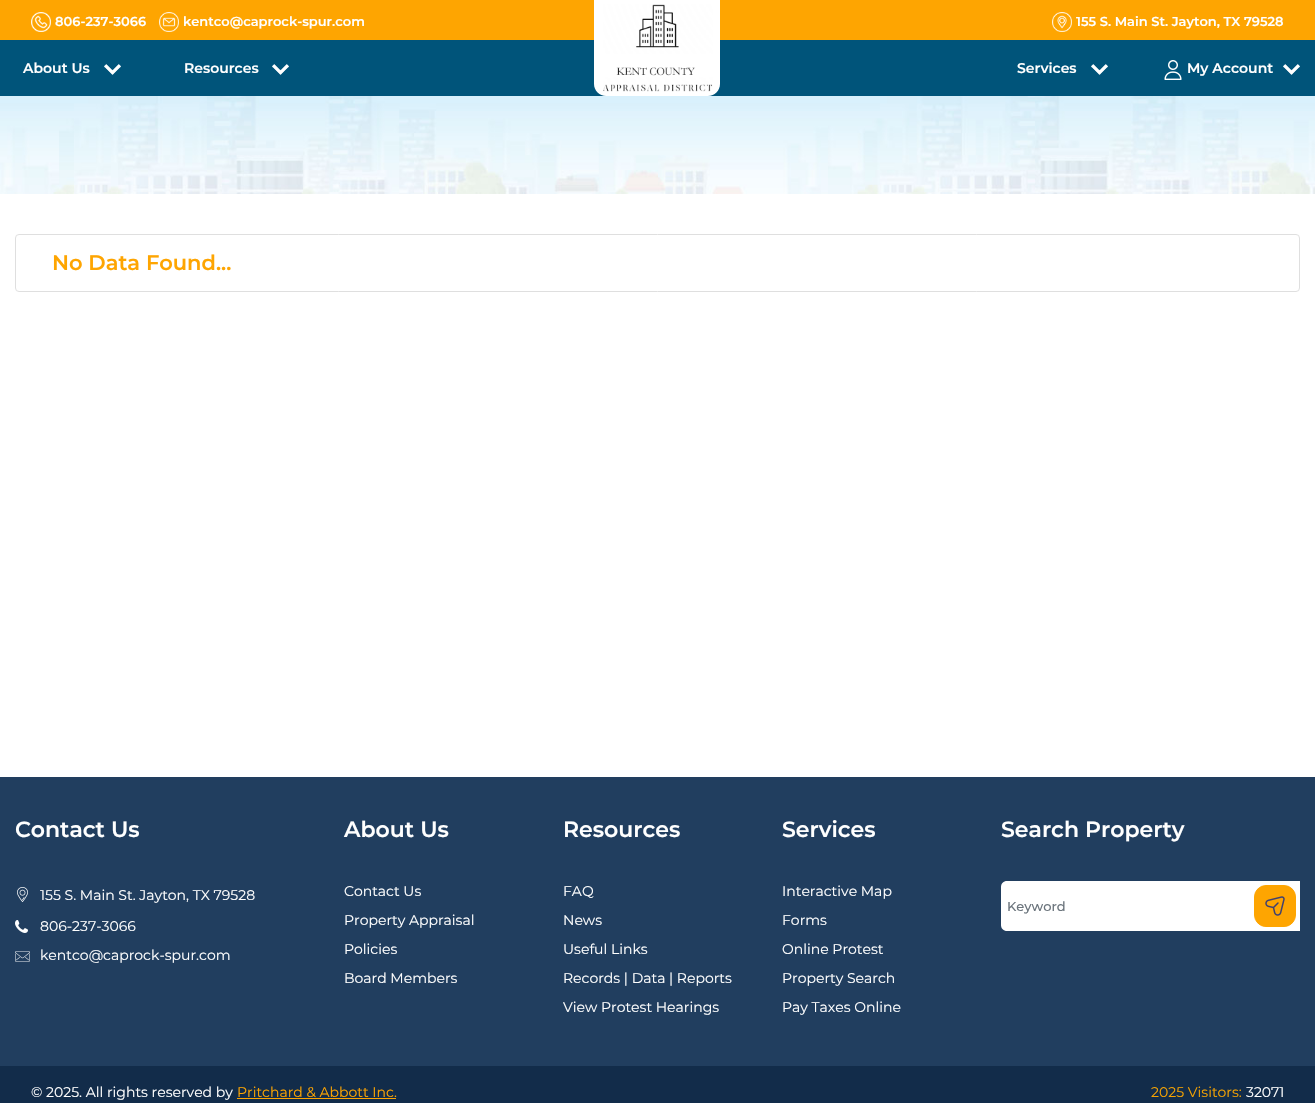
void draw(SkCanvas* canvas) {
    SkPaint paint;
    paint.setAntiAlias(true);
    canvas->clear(0xFFFFFFFF);
    paint.setColor(0xFFFEA501);
    canvas->drawRect(SkRect::MakeXYWH(0, 0, 1315, 40), paint);
    canvas->drawImageRect(SkImages::DeferredFromEncodedData(SkData::MakeFromFileName("img1.png")), SkRect::MakeXYWH(31, 12, 20, 20), SkSamplingOptions());
    SkFont font1(fontMgr->matchFamilyStyle("Montserrat", SkFontStyle(600, SkFontStyle::kNormal_Width, SkFontStyle::kUpright_Slant)), 13);
    font1.setSubpixel(true);
    paint.setColor(0xFFFFFFFF);
    canvas->drawString("806-237-3066", 55, 26, font1, paint);
    canvas->drawImageRect(SkImages::DeferredFromEncodedData(SkData::MakeFromFileName("img2.png")), SkRect::MakeXYWH(159, 12, 20, 20), SkSamplingOptions());
    canvas->drawString("kentco@caprock-spur.com", 183, 26, font1, paint);
    canvas->drawImageRect(SkImages::DeferredFromEncodedData(SkData::MakeFromFileName("img3.png")), SkRect::MakeXYWH(1052, 12, 20, 20), SkSamplingOptions());
    canvas->drawString("155 S. Main St. Jayton, TX 79528", 1076, 26, font1, paint);
    paint.setColor(0xFF00547A);
    canvas->drawRect(SkRect::MakeXYWH(0, 40, 1315, 56), paint);
    SkFont font2(fontMgr->matchFamilyStyle("Montserrat", SkFontStyle(600, SkFontStyle::kNormal_Width, SkFontStyle::kUpright_Slant)), 14);
    font2.setSubpixel(true);
    paint.setColor(0xFFFFFFFF);
    canvas->drawString("About Us", 23, 73, font2, paint);
    canvas->drawImageRect(SkImages::DeferredFromEncodedData(SkData::MakeFromFileName("img4.png")), SkRect::MakeXYWH(104, 64, 17, 11), SkSamplingOptions());
    canvas->drawString("Resources", 184, 73, font2, paint);
    canvas->drawImageRect(SkImages::DeferredFromEncodedData(SkData::MakeFromFileName("img4.png")), SkRect::MakeXYWH(272, 64, 17, 11), SkSamplingOptions());
    canvas->drawPath(SkPathBuilder().moveTo(594, 0).lineTo(720, 0).lineTo(720, 84).cubicTo(720, 90.5f, 714.5f, 96, 708, 96).lineTo(606, 96).cubicTo(599.5f, 96, 594, 90.5f, 594, 84).close().detach(), paint);
    canvas->drawImageRect(SkImages::DeferredFromEncodedData(SkData::MakeFromFileName("img5.png")), SkRect::MakeXYWH(603, 4, 110, 88), SkSamplingOptions());
    canvas->drawString("Services", 1017, 73, font2, paint);
    canvas->drawImageRect(SkImages::DeferredFromEncodedData(SkData::MakeFromFileName("img4.png")), SkRect::MakeXYWH(1091, 64, 17, 11), SkSamplingOptions());
    canvas->drawImageRect(SkImages::DeferredFromEncodedData(SkData::MakeFromFileName("img6.png")), SkRect::MakeXYWH(1164, 60, 18, 20), SkSamplingOptions());
    canvas->drawString("My Account", 1187, 73, font2, paint);
    canvas->drawImageRect(SkImages::DeferredFromEncodedData(SkData::MakeFromFileName("img4.png")), SkRect::MakeXYWH(1283, 64, 17, 11), SkSamplingOptions());
    canvas->drawImageRect(SkImages::DeferredFromEncodedData(SkData::MakeFromFileName("img7.png")), SkRect::MakeXYWH(0, 96, 1315, 98), SkSamplingOptions());
    paint.setStyle(SkPaint::kStroke_Style);
    paint.setStrokeWidth(1);
    paint.setColor(0xFFDFDFDF);
    canvas->drawRoundRect(SkRect::MakeXYWH(15.5f, 234.5f, 1284, 57), 3.5f, 3.5f, paint);
    SkFont font3(fontMgr->matchFamilyStyle("Montserrat", SkFontStyle(600, SkFontStyle::kNormal_Width, SkFontStyle::kUpright_Slant)), 21);
    font3.setSubpixel(true);
    paint.setStyle(SkPaint::kFill_Style);
    paint.setColor(0xFFFEA501);
    canvas->drawString("No Data Found...", 52, 270, font3, paint);
    paint.setColor(0xFF213E5F);
    canvas->drawRect(SkRect::MakeXYWH(0, 777, 1315, 289), paint);
    SkFont font4(fontMgr->matchFamilyStyle("Montserrat", SkFontStyle(600, SkFontStyle::kNormal_Width, SkFontStyle::kUpright_Slant)), 22);
    font4.setSubpixel(true);
    paint.setColor(0xFFFFFFFF);
    canvas->drawString("Contact Us", 15, 837, font4, paint);
    canvas->drawImageRect(SkImages::DeferredFromEncodedData(SkData::MakeFromFileName("img8.png")), SkRect::MakeXYWH(17, 887, 11, 15), SkSamplingOptions());
    SkFont font5(fontMgr->matchFamilyStyle("Montserrat", SkFontStyle::Normal()), 14);
    font5.setSubpixel(true);
    canvas->drawString("155 S. Main St. Jayton, TX 79528", 40, 900, font5, paint);
    canvas->drawImageRect(SkImages::DeferredFromEncodedData(SkData::MakeFromFileName("img9.png")), SkRect::MakeXYWH(15, 920, 13, 13), SkSamplingOptions());
    canvas->drawString("806-237-3066", 40, 931, font5, paint);
    canvas->drawImageRect(SkImages::DeferredFromEncodedData(SkData::MakeFromFileName("img10.png")), SkRect::MakeXYWH(15, 951, 15, 11), SkSamplingOptions());
    canvas->drawString("kentco@caprock-spur.com", 40, 960, font5, paint);
    canvas->drawString("About Us", 344, 837, font4, paint);
    canvas->drawString("Contact Us", 344, 896, font5, paint);
    canvas->drawString("Property Appraisal", 344, 925, font5, paint);
    canvas->drawString("Policies", 344, 954, font5, paint);
    canvas->drawString("Board Members", 344, 983, font5, paint);
    canvas->drawString("Resources", 563, 837, font4, paint);
    canvas->drawString("FAQ", 563, 896, font5, paint);
    canvas->drawString("News", 563, 925, font5, paint);
    canvas->drawString("Useful Links", 563, 954, font5, paint);
    canvas->drawString("Records | Data | Reports", 563, 983, font5, paint);
    canvas->drawString("View Protest Hearings", 563, 1012, font5, paint);
    canvas->drawString("Services", 782, 837, font4, paint);
    canvas->drawString("Interactive Map", 782, 896, font5, paint);
    canvas->drawString("Forms", 782, 925, font5, paint);
    canvas->drawString("Online Protest", 782, 954, font5, paint);
    canvas->drawString("Property Search", 782, 983, font5, paint);
    canvas->drawString("Pay Taxes Online", 782, 1012, font5, paint);
    canvas->drawString("Search Property", 1001, 837, font4, paint);
    canvas->drawPath(SkPathBuilder().moveTo(1007, 881).lineTo(1300, 881).lineTo(1300, 931).lineTo(1007, 931).cubicTo(1003.5f, 931, 1001, 928.5f, 1001, 925).lineTo(1001, 887).cubicTo(1001, 883.5f, 1003.5f, 881, 1007, 881).close().detach(), paint);
    SkFont font6(fontMgr->matchFamilyStyle("Montserrat", SkFontStyle(500, SkFontStyle::kNormal_Width, SkFontStyle::kUpright_Slant)), 13);
    font6.setSubpixel(true);
    paint.setColor(0xFF6C757D);
    canvas->drawString("Keyword", 1007, 911, font6, paint);
    paint.setColor(0xFFFEA501);
    canvas->drawRoundRect(SkRect::MakeXYWH(1254.5f, 885.5f, 41, 41), 11.5f, 11.5f, paint);
    paint.setStyle(SkPaint::kStroke_Style);
    canvas->drawRoundRect(SkRect::MakeXYWH(1254.5f, 885.5f, 41, 41), 11.5f, 11.5f, paint);
    canvas->drawImageRect(SkImages::DeferredFromEncodedData(SkData::MakeFromFileName("img11.png")), SkRect::MakeXYWH(1265, 896, 20, 20), SkSamplingOptions());
    paint.setStyle(SkPaint::kFill_Style);
    paint.setColor(0xFF122C4A);
    canvas->drawRect(SkRect::MakeXYWH(0, 1066, 1315, 37), paint);
    paint.setColor(0xFFFFFFFF);
    canvas->drawString("© 2025. All rights reserved by", 31, 1097, font5, paint);
    paint.setColor(0xFFFEA501);
    canvas->drawString("Pritchard & Abbott Inc.", 237, 1097, font5, paint);
    canvas->drawRect(SkRect::MakeXYWH(237, 1098, 159, 1), paint);
    paint.setColor(0xFFF5A302);
    canvas->drawString("2025 Visitors:", 1151, 1097, font5, paint);
    paint.setColor(0xFFFFFFFF);
    canvas->drawString("32071", 1246, 1097, font5, paint);
}
